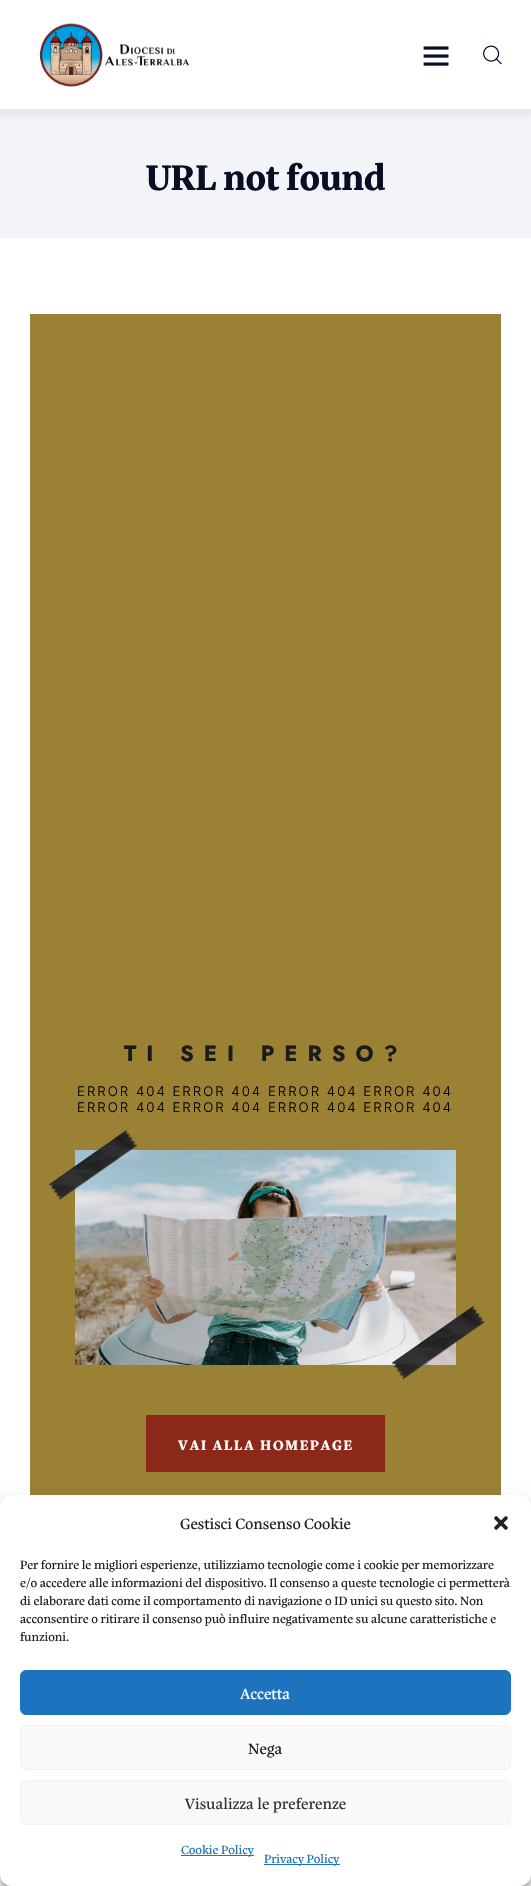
void draw(SkCanvas* canvas) {
    SkPaint paint;
    paint.setAntiAlias(true);
    auto spacedText = [&](const char* s, float x, float y, const SkFont& font, const SkPaint& ink, float letter, float word) {
        std::vector<SkGlyphID> glyphs(font.countText(s, strlen(s), SkTextEncoding::kUTF8));
        std::vector<float> xs(glyphs.size());
        font.textToGlyphs(s, strlen(s), SkTextEncoding::kUTF8, glyphs);
        font.getXPos(glyphs, xs, x);
        float extra = 0;
        for (size_t i = 0; i < glyphs.size(); i++) {
            xs[i] += extra;
            extra += letter + word * (glyphs[i] == font.unicharToGlyph(' '));
        }
        canvas->drawTextBlob(SkTextBlob::MakeFromPosHGlyphs(glyphs, xs, y, font), 0, 0, ink);
    };
    canvas->clear(0xFFFFFFFF);
    paint.setColor(0xFFF2F4F7);
    canvas->drawRect(SkRect::MakeXYWH(0, 110, 531, 128), paint);
    canvas->save();
    canvas->clipRect(SkRect::MakeXYWH(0, 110, 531, 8));
    paint.setColor(0x14000000);
    paint.setMaskFilter(SkMaskFilter::MakeBlur(kNormal_SkBlurStyle, 8));
    canvas->drawRect(SkRect::MakeXYWH(-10, 3, 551, 110), paint);
    paint.setMaskFilter(nullptr);
    canvas->restore();
    paint.setColor(0xFFEAEAEA);
    canvas->drawRect(SkRect::MakeXYWH(0, 109, 531, 1), paint);
    canvas->drawImageRect(SkImages::DeferredFromEncodedData(SkData::MakeFromFileName("img1.png")), SkRect::MakeXYWH(39, 23, 150, 64), SkSamplingOptions());
    canvas->drawImageRect(SkImages::DeferredFromEncodedData(SkData::MakeFromFileName("img2.png")), SkRect::MakeXYWH(423, 46, 26, 20), SkSamplingOptions());
    canvas->drawImageRect(SkImages::DeferredFromEncodedData(SkData::MakeFromFileName("img3.png")), SkRect::MakeXYWH(483, 45, 19, 20), SkSamplingOptions());
    SkFont font1(fontMgr->matchFamilyStyle("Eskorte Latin", SkFontStyle::Bold()), 36);
    font1.setSubpixel(true);
    paint.setColor(0xFF080F24);
    spacedText("URL not found", 146, 190, font1, paint, -0.75f, 0);
    paint.setColor(0xFF9B8133);
    canvas->drawRect(SkRect::MakeXYWH(30, 314, 471, 1181), paint);
    SkFont font2(fontMgr->matchFamilyStyle("Jost", SkFontStyle::Bold()), 22);
    font2.setSubpixel(true);
    paint.setColor(0xFF1B1B1B);
    spacedText("TI SEI PERSO?", 124, 1061, font2, paint, 10, 0);
    SkFont font3(fontMgr->matchFamilyStyle("Inter", SkFontStyle(300, SkFontStyle::kNormal_Width, SkFontStyle::kUpright_Slant)), 13.25f);
    font3.setSubpixel(true);
    paint.setColor(0xFF000000);
    spacedText("ERROR 404 ERROR 404 ERROR 404 ERROR 404", 77, 1096, font3, paint, 2, 0);
    spacedText("ERROR 404 ERROR 404 ERROR 404 ERROR 404", 77, 1112, font3, paint, 2, 0);
    canvas->drawImageRect(SkImages::DeferredFromEncodedData(SkData::MakeFromFileName("img5.png")), SkRect::MakeXYWH(75, 1150, 381, 215), SkSamplingOptions());
    canvas->drawImageRect(SkImages::DeferredFromEncodedData(SkData::MakeFromFileName("img4.png")), SkRect::MakeXYWH(48, 1130, 90, 70), SkSamplingOptions());
    canvas->drawImageRect(SkImages::DeferredFromEncodedData(SkData::MakeFromFileName("img6.png")), SkRect::MakeXYWH(391, 1305, 94, 75), SkSamplingOptions());
    paint.setColor(0xFF8C281A);
    canvas->drawRect(SkRect::MakeXYWH(146, 1415, 239, 57), paint);
    SkFont font4(fontMgr->matchFamilyStyle("Eskorte Latin", SkFontStyle::Bold()), 14);
    font4.setSubpixel(true);
    paint.setColor(0xFFFFFFFF);
    spacedText("VAI ALLA HOMEPAGE", 178, 1450, font4, paint, 1.7f, 0);
    paint.setColor(0x3B000000);
    paint.setMaskFilter(SkMaskFilter::MakeBlur(kNormal_SkBlurStyle, 3));
    canvas->drawRoundRect(SkRect::MakeXYWH(0, 1501, 531, 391), 12, 12, paint);
    paint.setMaskFilter(nullptr);
    paint.setColor(0x30000000);
    paint.setMaskFilter(SkMaskFilter::MakeBlur(kNormal_SkBlurStyle, 10));
    canvas->drawRoundRect(SkRect::MakeXYWH(0, 1505, 531, 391), 12, 12, paint);
    paint.setMaskFilter(nullptr);
    paint.setColor(0xFFFFFFFF);
    canvas->drawRoundRect(SkRect::MakeXYWH(0, 1495, 531, 391), 12, 12, paint);
    SkFont font5(fontMgr->matchFamilyStyle("Eskorte Latin", SkFontStyle::Normal()), 15);
    font5.setSubpixel(true);
    paint.setColor(0xFF222222);
    spacedText("Gestisci Consenso Cookie", 180, 1529, font5, paint, -0.1f, 0);
    canvas->drawImageRect(SkImages::DeferredFromEncodedData(SkData::MakeFromFileName("img7.png")), SkRect::MakeXYWH(494, 1516, 14, 14), SkSamplingOptions());
    SkFont font6(fontMgr->matchFamilyStyle("Eskorte Latin", SkFontStyle::Normal()), 12);
    font6.setSubpixel(true);
    spacedText("Per fornire le migliori esperienze, utilizziamo tecnologie come i cookie per memorizzare", 20, 1569, font6, paint, -0.1f, 0);
    spacedText("e/o accedere alle informazioni del dispositivo. Il consenso a queste tecnologie ci permetterà", 20, 1587, font6, paint, -0.1f, 0);
    spacedText("di elaborare dati come il comportamento di navigazione o ID unici su questo sito. Non", 20, 1605, font6, paint, -0.1f, 0);
    spacedText("acconsentire o ritirare il consenso può influire negativamente su alcune caratteristiche e", 20, 1623, font6, paint, -0.1f, 0);
    spacedText("funzioni.", 20, 1641, font6, paint, -0.1f, 0);
    paint.setColor(0xFF1E73BE);
    canvas->drawRoundRect(SkRect::MakeXYWH(20.5f, 1670.5f, 490, 44), 5.5f, 5.5f, paint);
    paint.setStyle(SkPaint::kStroke_Style);
    paint.setStrokeWidth(1);
    canvas->drawRoundRect(SkRect::MakeXYWH(20.5f, 1670.5f, 490, 44), 5.5f, 5.5f, paint);
    paint.setStyle(SkPaint::kFill_Style);
    paint.setColor(0xFFFFFFFF);
    canvas->drawString("Accetta", 240, 1699, font5, paint);
    paint.setColor(0xFFF9F9F9);
    canvas->drawRoundRect(SkRect::MakeXYWH(20.5f, 1725.5f, 490, 44), 5.5f, 5.5f, paint);
    paint.setStyle(SkPaint::kStroke_Style);
    paint.setColor(0xFFF2F2F2);
    canvas->drawRoundRect(SkRect::MakeXYWH(20.5f, 1725.5f, 490, 44), 5.5f, 5.5f, paint);
    paint.setStyle(SkPaint::kFill_Style);
    paint.setColor(0xFF222222);
    canvas->drawString("Nega", 248, 1754, font5, paint);
    paint.setColor(0xFFF9F9F9);
    canvas->drawRoundRect(SkRect::MakeXYWH(20.5f, 1780.5f, 490, 44), 5.5f, 5.5f, paint);
    paint.setStyle(SkPaint::kStroke_Style);
    paint.setColor(0xFFF2F2F2);
    canvas->drawRoundRect(SkRect::MakeXYWH(20.5f, 1780.5f, 490, 44), 5.5f, 5.5f, paint);
    paint.setStyle(SkPaint::kFill_Style);
    paint.setColor(0xFF333333);
    canvas->drawString("Visualizza le preferenze", 185, 1809, font5, paint);
    paint.setColor(0xFF1E73BE);
    canvas->drawRect(SkRect::MakeXYWH(181, 1855, 73, 1), paint);
    spacedText("Cookie Policy", 181, 1854, font6, paint, -0.1f, 0);
    canvas->drawRect(SkRect::MakeXYWH(264, 1864, 76, 1), paint);
    spacedText("Privacy Policy", 264, 1863, font6, paint, -0.1f, 0);
}
